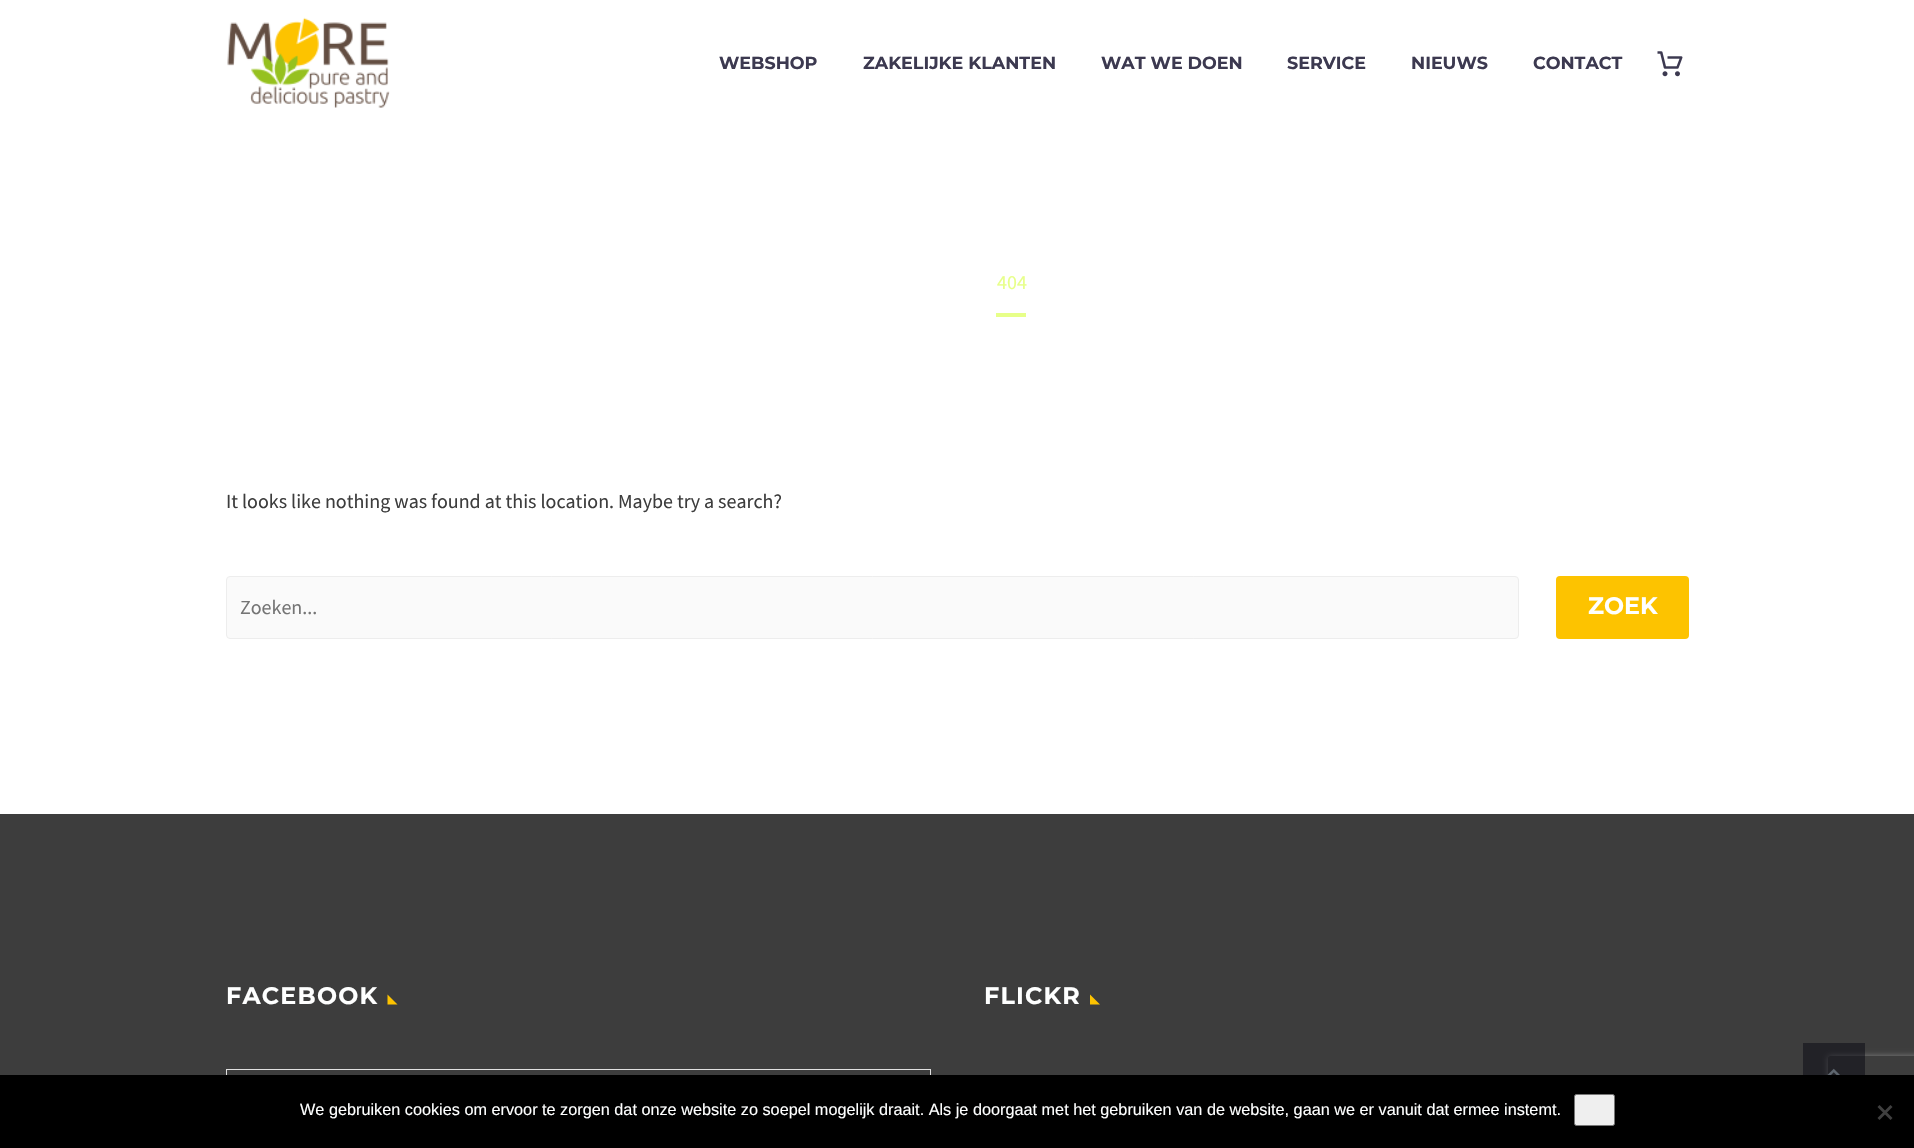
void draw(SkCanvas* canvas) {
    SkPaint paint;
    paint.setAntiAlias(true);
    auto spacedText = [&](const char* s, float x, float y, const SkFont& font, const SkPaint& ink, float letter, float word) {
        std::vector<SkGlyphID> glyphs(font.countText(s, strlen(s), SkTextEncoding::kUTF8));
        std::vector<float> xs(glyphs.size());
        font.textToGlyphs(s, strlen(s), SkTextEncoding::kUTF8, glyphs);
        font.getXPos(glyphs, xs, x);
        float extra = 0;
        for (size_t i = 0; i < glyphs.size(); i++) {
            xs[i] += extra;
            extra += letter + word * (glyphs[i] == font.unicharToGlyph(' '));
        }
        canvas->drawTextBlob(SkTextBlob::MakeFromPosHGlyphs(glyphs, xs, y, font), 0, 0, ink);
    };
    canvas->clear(0xFFFFFFFF);
    canvas->drawImageRect(SkImages::DeferredFromEncodedData(SkData::MakeFromFileName("img1.png")), SkRect::MakeXYWH(227, 17, 163, 91), SkSamplingOptions());
    SkFont font1(fontMgr->matchFamilyStyle("Montserrat", SkFontStyle::Bold()), 17.5f);
    font1.setSubpixel(true);
    paint.setColor(0xFF3C3950);
    canvas->drawString("WEBSHOP", 719, 69, font1, paint);
    canvas->drawString("ZAKELIJKE KLANTEN", 863, 69, font1, paint);
    canvas->drawString("WAT WE DOEN", 1101, 69, font1, paint);
    canvas->drawString("SERVICE", 1287, 69, font1, paint);
    canvas->drawString("NIEUWS", 1411, 69, font1, paint);
    canvas->drawString("CONTACT", 1533, 69, font1, paint);
    canvas->drawImageRect(SkImages::DeferredFromEncodedData(SkData::MakeFromFileName("img2.png")), SkRect::MakeXYWH(1657, 51, 26, 26), SkSamplingOptions());
    paint.setColor(0xFFE7FF89);
    canvas->drawRect(SkRect::MakeXYWH(996, 313, 30, 4), paint);
    SkFont font2(fontMgr->matchFamilyStyle("Source Sans Pro", SkFontStyle::Normal()), 20);
    font2.setSubpixel(true);
    canvas->drawString("404", 997, 289, font2, paint);
    paint.setColor(0xFF3D3D3D);
    canvas->drawString("It looks like nothing was found at this location. Maybe try a search?", 226, 508, font2, paint);
    paint.setColor(0xFFFAFAFA);
    canvas->drawRoundRect(SkRect::MakeXYWH(226.5f, 576.5f, 1292, 62), 3.5f, 3.5f, paint);
    paint.setStyle(SkPaint::kStroke_Style);
    paint.setStrokeWidth(1);
    paint.setColor(0xFFEDEDED);
    canvas->drawRoundRect(SkRect::MakeXYWH(226.5f, 576.5f, 1292, 62), 3.5f, 3.5f, paint);
    paint.setStyle(SkPaint::kFill_Style);
    paint.setColor(0xFF757575);
    canvas->drawString("Zoeken...", 240, 614, font2, paint);
    paint.setColor(0xFFFDC300);
    canvas->drawRoundRect(SkRect::MakeXYWH(1556, 576, 133, 63), 4, 4, paint);
    SkFont font3(fontMgr->matchFamilyStyle("Montserrat", SkFontStyle::Bold()), 23.75f);
    font3.setSubpixel(true);
    paint.setColor(0xFFFEFFFF);
    canvas->drawString("ZOEK", 1588, 614, font3, paint);
    paint.setColor(0xFF3D3D3D);
    canvas->drawRect(SkRect::MakeXYWH(0, 814, 1914, 261), paint);
    paint.setColor(0xFFFEFFFF);
    spacedText("FACEBOOK", 226, 1004, font3, paint, 1.25f, 0);
    paint.setColor(0xFFFDC300);
    canvas->drawPath(SkPathBuilder().moveTo(387.5f, 994.5f).lineTo(387.5f, 1004.5f).lineTo(397.5f, 1004.5f).close().detach(), paint);
    paint.setStyle(SkPaint::kStroke_Style);
    paint.setColor(0xFFE0E0E0);
    canvas->drawRect(SkRect::MakeXYWH(226.5f, 1069.5f, 704, 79), paint);
    paint.setStyle(SkPaint::kFill_Style);
    paint.setColor(0xFFFEFFFF);
    spacedText("FLICKR", 984, 1004, font3, paint, 1.25f, 0);
    paint.setColor(0xFFFDC300);
    canvas->drawPath(SkPathBuilder().moveTo(1090, 994.5f).lineTo(1090, 1004.5f).lineTo(1100, 1004.5f).close().detach(), paint);
    canvas->save();
    canvas->clipPath(SkPathBuilder(SkPathFillType::kEvenOdd).moveTo(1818, 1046).lineTo(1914, 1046).lineTo(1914, 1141).lineTo(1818, 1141).close().moveTo(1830.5f, 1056).lineTo(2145.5f, 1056).cubicTo(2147, 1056, 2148, 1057, 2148, 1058.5f).lineTo(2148, 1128.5f).cubicTo(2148, 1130, 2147, 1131, 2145.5f, 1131).lineTo(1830.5f, 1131).cubicTo(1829, 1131, 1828, 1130, 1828, 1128.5f).lineTo(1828, 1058.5f).cubicTo(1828, 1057, 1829, 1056, 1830.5f, 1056).close().detach(), true);
    paint.setColor(0xFF808080);
    paint.setMaskFilter(SkMaskFilter::MakeBlur(kNormal_SkBlurStyle, 3));
    canvas->drawRoundRect(SkRect::MakeXYWH(1828, 1056, 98, 75), 2.5f, 2.5f, paint);
    paint.setMaskFilter(nullptr);
    canvas->restore();
    paint.setColor(0x8006060F);
    canvas->drawRect(SkRect::MakeXYWH(1803, 1043, 62, 32), paint);
    canvas->drawImageRect(SkImages::DeferredFromEncodedData(SkData::MakeFromFileName("img3.png")), SkRect::MakeXYWH(1827, 1068, 13, 7), SkSamplingOptions());
    paint.setColor(0xFF000000);
    canvas->drawRect(SkRect::MakeXYWH(0, 1075, 1914, 73), paint);
    SkFont font4(fontMgr->matchFamilyStyle("Liberation Sans", SkFontStyle::Normal()), 16.25f);
    font4.setSubpixel(true);
    paint.setColor(0xFFFEFFFF);
    canvas->drawString("We gebruiken cookies om ervoor te zorgen dat onze website zo soepel mogelijk draait. Als je doorgaat met het gebruiken van de website, gaan we er vanuit dat ermee instemt.", 300, 1115, font4, paint);
    paint.setColor(0xFFEFEFEF);
    canvas->drawRoundRect(SkRect::MakeXYWH(1574.5f, 1094.5f, 40, 31), 2, 2, paint);
    paint.setStyle(SkPaint::kStroke_Style);
    paint.setColor(0xFF767676);
    canvas->drawRoundRect(SkRect::MakeXYWH(1574.5f, 1094.5f, 40, 31), 2, 2, paint);
    paint.setStyle(SkPaint::kFill_Style);
    paint.setColor(0xFF404040);
    canvas->drawPath(SkPathBuilder().moveTo(1890.5f, 1105).lineTo(1892.5f, 1107).lineTo(1879.5f, 1120).lineTo(1877.5f, 1118).close().detach(), paint);
    canvas->drawPath(SkPathBuilder().moveTo(1877.5f, 1107).lineTo(1879.5f, 1105).lineTo(1892.5f, 1118).lineTo(1890.5f, 1120).close().detach(), paint);
}
